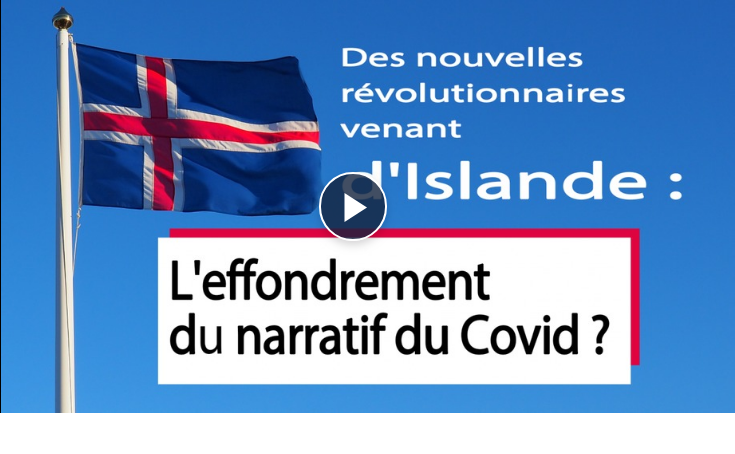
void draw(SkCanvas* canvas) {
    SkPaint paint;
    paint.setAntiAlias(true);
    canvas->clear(0xFFFFFFFF);
    paint.setColor(0xFF000000);
    canvas->drawRect(SkRect::MakeXYWH(0, 0, 1, 413), paint);
    canvas->drawImageRect(SkImages::DeferredFromEncodedData(SkData::MakeFromFileName("img1.png")), SkRect::MakeXYWH(1, 0, 734, 413), SkSamplingOptions());
    canvas->save();
    canvas->clipPath(SkPathBuilder(SkPathFillType::kEvenOdd).moveTo(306, 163).lineTo(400, 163).lineTo(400, 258).lineTo(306, 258).close().moveTo(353, 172).cubicTo(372, 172, 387, 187, 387, 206).lineTo(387, 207).cubicTo(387, 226, 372, 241, 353, 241).cubicTo(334, 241, 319, 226, 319, 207).lineTo(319, 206).cubicTo(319, 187, 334, 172, 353, 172).close().detach(), true);
    paint.setColor(0x29000000);
    paint.setMaskFilter(SkMaskFilter::MakeBlur(kNormal_SkBlurStyle, 4));
    canvas->drawRoundRect(SkRect::MakeXYWH(319, 176, 68, 69), 34, 34, paint);
    paint.setMaskFilter(nullptr);
    canvas->restore();
    paint.setColor(0xCC13223C);
    canvas->drawRoundRect(SkRect::MakeXYWH(320, 173, 66, 67), 33, 33, paint);
    paint.setStyle(SkPaint::kStroke_Style);
    paint.setStrokeWidth(2);
    paint.setColor(0xFFFFFFFF);
    canvas->drawRoundRect(SkRect::MakeXYWH(320, 173, 66, 67), 33, 33, paint);
    paint.setStyle(SkPaint::kFill_Style);
    canvas->drawPath(SkPathBuilder().moveTo(344.5f, 193).lineTo(344.5f, 222).lineTo(367, 207.5f).close().detach(), paint);
}
